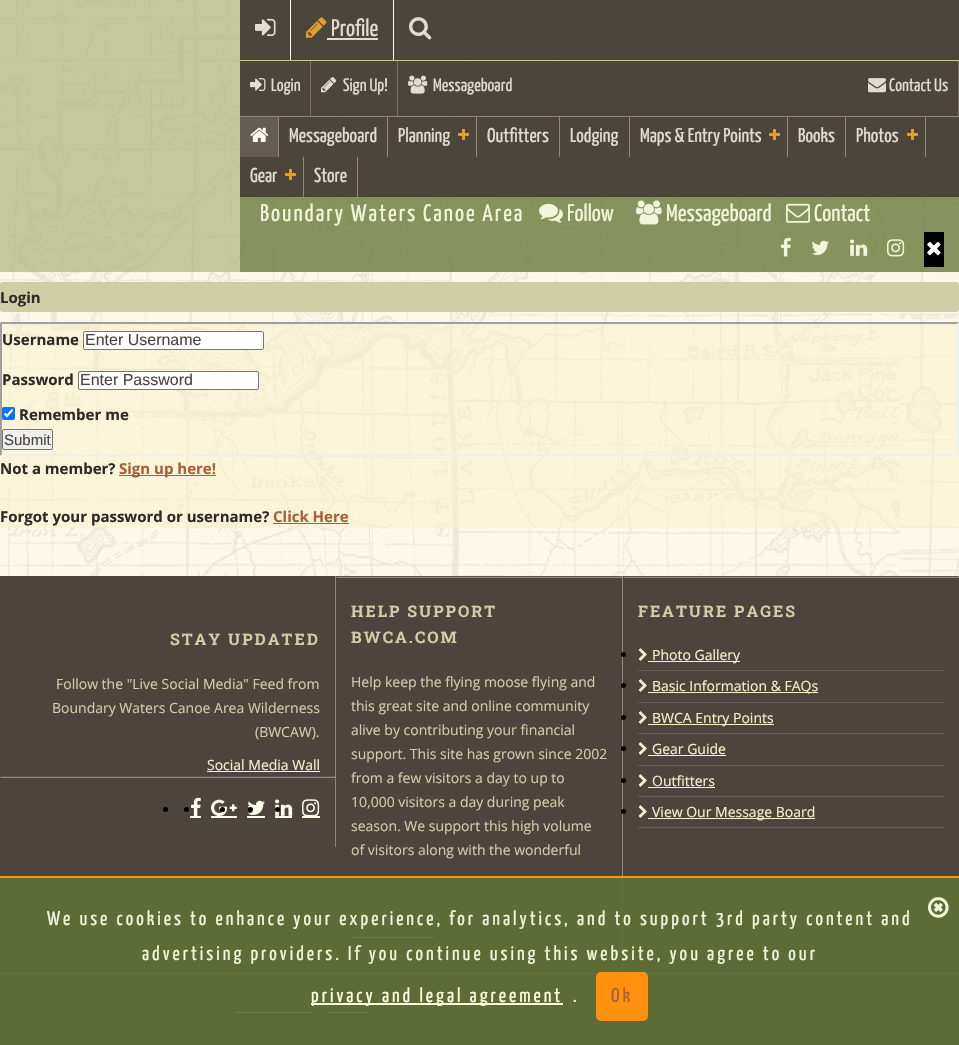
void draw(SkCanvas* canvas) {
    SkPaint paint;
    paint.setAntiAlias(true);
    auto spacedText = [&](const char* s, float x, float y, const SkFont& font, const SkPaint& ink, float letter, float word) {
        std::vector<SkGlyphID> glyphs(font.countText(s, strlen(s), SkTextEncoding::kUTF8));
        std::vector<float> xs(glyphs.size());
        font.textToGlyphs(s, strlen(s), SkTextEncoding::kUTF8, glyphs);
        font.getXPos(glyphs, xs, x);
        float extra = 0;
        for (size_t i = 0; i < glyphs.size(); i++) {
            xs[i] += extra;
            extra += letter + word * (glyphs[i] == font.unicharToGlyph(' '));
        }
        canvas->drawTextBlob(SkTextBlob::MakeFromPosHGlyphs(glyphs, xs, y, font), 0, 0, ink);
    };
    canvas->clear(0xFF4C443D);
    canvas->drawImageRect(SkImages::DeferredFromEncodedData(SkData::MakeFromFileName("img1.png")), SkRect::MakeXYWH(0, 0, 959, 576), SkSamplingOptions());
    paint.setColor(0xB3ACB37A);
    canvas->drawRect(SkRect::MakeXYWH(0, 0, 959, 272), paint);
    paint.setColor(0xE63E372F);
    canvas->drawRect(SkRect::MakeXYWH(240, 0, 719, 197), paint);
    paint.setColor(0xFFC4C89B);
    canvas->drawRect(SkRect::MakeXYWH(240, 60, 719, 1), paint);
    paint.setColor(0xFFFEFCEB);
    canvas->drawRect(SkRect::MakeXYWH(290, 0, 1, 60), paint);
    canvas->drawImageRect(SkImages::DeferredFromEncodedData(SkData::MakeFromFileName("img2.png")), SkRect::MakeXYWH(255, 18, 21, 18), SkSamplingOptions());
    canvas->drawRect(SkRect::MakeXYWH(393, 0, 1, 60), paint);
    canvas->drawImageRect(SkImages::DeferredFromEncodedData(SkData::MakeFromFileName("img3.png")), SkRect::MakeXYWH(306, 17, 21, 21), SkSamplingOptions());
    SkFont font1(fontMgr->matchFamilyStyle("Yanone Kaffeesatz", SkFontStyle::Normal()), 24);
    font1.setSubpixel(true);
    paint.setColor(0xFFE0DDCE);
    canvas->drawString("Profile", 331, 36, font1, paint);
    canvas->drawRect(SkRect::MakeXYWH(327, 38, 51, 2), paint);
    canvas->drawImageRect(SkImages::DeferredFromEncodedData(SkData::MakeFromFileName("img4.png")), SkRect::MakeXYWH(409, 17, 23, 23), SkSamplingOptions());
    canvas->drawImageRect(SkImages::DeferredFromEncodedData(SkData::MakeFromFileName("img5.png")), SkRect::MakeXYWH(250, 78, 16, 13), SkSamplingOptions());
    SkFont font2(fontMgr->matchFamilyStyle("Yanone Kaffeesatz", SkFontStyle::Normal()), 18);
    font2.setSubpixel(true);
    canvas->drawString("Login", 271, 91, font2, paint);
    paint.setColor(0xFF776E67);
    canvas->drawRect(SkRect::MakeXYWH(310, 61, 1, 55), paint);
    canvas->drawImageRect(SkImages::DeferredFromEncodedData(SkData::MakeFromFileName("img6.png")), SkRect::MakeXYWH(321, 77, 16, 16), SkSamplingOptions());
    paint.setColor(0xFFE0DDCE);
    canvas->drawString("Sign Up!", 343, 91, font2, paint);
    paint.setColor(0xFF776E67);
    canvas->drawRect(SkRect::MakeXYWH(397, 61, 1, 55), paint);
    canvas->drawImageRect(SkImages::DeferredFromEncodedData(SkData::MakeFromFileName("img7.png")), SkRect::MakeXYWH(408, 75, 20, 19), SkSamplingOptions());
    paint.setColor(0xFFE0DDCE);
    canvas->drawString("Messageboard", 433, 91, font2, paint);
    canvas->drawImageRect(SkImages::DeferredFromEncodedData(SkData::MakeFromFileName("img8.png")), SkRect::MakeXYWH(868, 78, 18, 15), SkSamplingOptions());
    canvas->drawString("Contact Us", 889, 91, font2, paint);
    paint.setColor(0xFF776E67);
    canvas->drawRect(SkRect::MakeXYWH(958, 61, 1, 55), paint);
    paint.setColor(0xFF91877E);
    canvas->drawRect(SkRect::MakeXYWH(240, 116, 719, 1), paint);
    canvas->drawRect(SkRect::MakeXYWH(278, 117, 1, 40), paint);
    paint.setColor(0xFF655C53);
    canvas->drawRect(SkRect::MakeXYWH(240, 117, 38, 40), paint);
    canvas->drawImageRect(SkImages::DeferredFromEncodedData(SkData::MakeFromFileName("img9.png")), SkRect::MakeXYWH(250, 127, 19, 15), SkSamplingOptions());
    paint.setColor(0xFF91877E);
    canvas->drawRect(SkRect::MakeXYWH(387, 117, 1, 40), paint);
    SkFont font3(fontMgr->matchFamilyStyle("Yanone Kaffeesatz", SkFontStyle::Normal()), 20);
    font3.setSubpixel(true);
    paint.setColor(0xFFE0DDCE);
    canvas->drawString("Messageboard", 289, 142, font3, paint);
    paint.setColor(0xFF91877E);
    canvas->drawRect(SkRect::MakeXYWH(476, 117, 1, 40), paint);
    paint.setColor(0xFFE0DDCE);
    canvas->drawString("Planning", 398, 142, font3, paint);
    canvas->drawImageRect(SkImages::DeferredFromEncodedData(SkData::MakeFromFileName("img10.png")), SkRect::MakeXYWH(458, 129, 11, 11), SkSamplingOptions());
    paint.setColor(0xFF91877E);
    canvas->drawRect(SkRect::MakeXYWH(559, 117, 1, 40), paint);
    paint.setColor(0xFFE0DDCE);
    canvas->drawString("Outfitters", 487, 142, font3, paint);
    paint.setColor(0xFF91877E);
    canvas->drawRect(SkRect::MakeXYWH(629, 117, 1, 40), paint);
    paint.setColor(0xFFE0DDCE);
    canvas->drawString("Lodging", 570, 142, font3, paint);
    paint.setColor(0xFF91877E);
    canvas->drawRect(SkRect::MakeXYWH(787, 117, 1, 40), paint);
    paint.setColor(0xFFE0DDCE);
    canvas->drawString("Maps & Entry Points", 640, 142, font3, paint);
    canvas->drawImageRect(SkImages::DeferredFromEncodedData(SkData::MakeFromFileName("img11.png")), SkRect::MakeXYWH(769, 129, 11, 11), SkSamplingOptions());
    paint.setColor(0xFF91877E);
    canvas->drawRect(SkRect::MakeXYWH(845, 117, 1, 40), paint);
    paint.setColor(0xFFE0DDCE);
    canvas->drawString("Books", 798, 142, font3, paint);
    paint.setColor(0xFF91877E);
    canvas->drawRect(SkRect::MakeXYWH(925, 117, 1, 40), paint);
    paint.setColor(0xFFE0DDCE);
    canvas->drawString("Photos", 856, 142, font3, paint);
    canvas->drawImageRect(SkImages::DeferredFromEncodedData(SkData::MakeFromFileName("img12.png")), SkRect::MakeXYWH(907, 129, 11, 11), SkSamplingOptions());
    paint.setColor(0xFF91877E);
    canvas->drawRect(SkRect::MakeXYWH(303, 157, 1, 40), paint);
    paint.setColor(0xFFE0DDCE);
    canvas->drawString("Gear", 250, 182, font3, paint);
    canvas->drawImageRect(SkImages::DeferredFromEncodedData(SkData::MakeFromFileName("img13.png")), SkRect::MakeXYWH(285, 169, 11, 11), SkSamplingOptions());
    paint.setColor(0xFF91877E);
    canvas->drawRect(SkRect::MakeXYWH(357, 157, 1, 40), paint);
    paint.setColor(0xFFE0DDCE);
    canvas->drawString("Store", 314, 182, font3, paint);
    paint.setColor(0x995E6F36);
    canvas->drawRect(SkRect::MakeXYWH(240, 197, 719, 75), paint);
    paint.setColor(0xFFF2F5DB);
    spacedText("Boundary Waters Canoe Area", 260, 221, font1, paint, 2, 0);
    canvas->drawImageRect(SkImages::DeferredFromEncodedData(SkData::MakeFromFileName("img14.png")), SkRect::MakeXYWH(539, 203, 24, 20), SkSamplingOptions());
    canvas->drawString("Follow", 567, 221, font1, paint);
    canvas->drawImageRect(SkImages::DeferredFromEncodedData(SkData::MakeFromFileName("img15.png")), SkRect::MakeXYWH(636, 200, 26, 25), SkSamplingOptions());
    canvas->drawString("Messageboard", 666, 221, font1, paint);
    canvas->drawImageRect(SkImages::DeferredFromEncodedData(SkData::MakeFromFileName("img16.png")), SkRect::MakeXYWH(786, 203, 24, 20), SkSamplingOptions());
    canvas->drawString("Contact", 814, 221, font1, paint);
    canvas->drawImageRect(SkImages::DeferredFromEncodedData(SkData::MakeFromFileName("img17.png")), SkRect::MakeXYWH(781, 237, 10, 20), SkSamplingOptions());
    canvas->drawImageRect(SkImages::DeferredFromEncodedData(SkData::MakeFromFileName("img18.png")), SkRect::MakeXYWH(811, 240, 18, 15), SkSamplingOptions());
    canvas->drawImageRect(SkImages::DeferredFromEncodedData(SkData::MakeFromFileName("img19.png")), SkRect::MakeXYWH(850, 239, 18, 17), SkSamplingOptions());
    canvas->drawImageRect(SkImages::DeferredFromEncodedData(SkData::MakeFromFileName("img20.png")), SkRect::MakeXYWH(887, 239, 18, 18), SkSamplingOptions());
    paint.setColor(0xFF000000);
    canvas->drawRect(SkRect::MakeXYWH(924, 232, 20, 35), paint);
    canvas->drawImageRect(SkImages::DeferredFromEncodedData(SkData::MakeFromFileName("img21.png")), SkRect::MakeXYWH(927, 242, 14, 14), SkSamplingOptions());
    paint.setColor(0xFFCDCEA6);
    canvas->drawRoundRect(SkRect::MakeXYWH(0, 282, 959, 30), 3, 3, paint);
    SkFont font4(fontMgr->matchFamilyStyle("Open Sans", SkFontStyle::Bold()), 15);
    font4.setSubpixel(true);
    paint.setColor(0xFF2F2A26);
    canvas->drawString("Login", 0, 303, font4, paint);
    paint.setColor(0x80FAF1CC);
    canvas->drawRect(SkRect::MakeXYWH(0, 322, 959, 206), paint);
    paint.setColor(0xFF9F9F9F);
    canvas->drawPath(SkPathBuilder().moveTo(0, 322).lineTo(959, 322).lineTo(957, 324).lineTo(2, 324).close().detach(), paint);
    paint.setColor(0xFFEFEFEF);
    canvas->drawPath(SkPathBuilder().moveTo(959, 322).lineTo(959, 456).lineTo(957, 454).lineTo(957, 324).close().detach(), paint);
    canvas->drawPath(SkPathBuilder().moveTo(959, 456).lineTo(0, 456).lineTo(2, 454).lineTo(957, 454).close().detach(), paint);
    paint.setColor(0xFF9F9F9F);
    canvas->drawPath(SkPathBuilder().moveTo(0, 456).lineTo(0, 322).lineTo(2, 324).lineTo(2, 454).close().detach(), paint);
    paint.setColor(0xFF2F2A26);
    canvas->drawString("Username", 2, 345, font4, paint);
    paint.setColor(0xFFFFFFFF);
    canvas->drawRoundRect(SkRect::MakeXYWH(83.5f, 331.5f, 180, 18), 1.5f, 1.5f, paint);
    paint.setStyle(SkPaint::kStroke_Style);
    paint.setStrokeWidth(1);
    paint.setColor(0xFF767676);
    canvas->drawRoundRect(SkRect::MakeXYWH(83.5f, 331.5f, 180, 18), 1.5f, 1.5f, paint);
    SkFont font5(fontMgr->matchFamilyStyle("Liberation Sans", SkFontStyle::Normal()), 16);
    font5.setSubpixel(true);
    paint.setStyle(SkPaint::kFill_Style);
    paint.setColor(0xFF4C443D);
    canvas->drawString("Enter Username", 85, 345, font5, paint);
    paint.setColor(0xFF2F2A26);
    canvas->drawString("Password", 2, 385, font4, paint);
    paint.setColor(0xFFFFFFFF);
    canvas->drawRoundRect(SkRect::MakeXYWH(78.5f, 371.5f, 180, 18), 1.5f, 1.5f, paint);
    paint.setStyle(SkPaint::kStroke_Style);
    paint.setColor(0xFF767676);
    canvas->drawRoundRect(SkRect::MakeXYWH(78.5f, 371.5f, 180, 18), 1.5f, 1.5f, paint);
    paint.setStyle(SkPaint::kFill_Style);
    paint.setColor(0xFF4C443D);
    canvas->drawString("Enter Password", 80, 385, font5, paint);
    paint.setColor(0xFF0075FF);
    canvas->drawRoundRect(SkRect::MakeXYWH(2, 407, 13, 13), 2, 2, paint);
    paint.setStyle(SkPaint::kStroke_Style);
    paint.setStrokeWidth(2.1f);
    paint.setColor(0xFFFFFFFF);
    canvas->drawPath(SkPathBuilder().moveTo(4.5f, 413.5f).lineTo(7, 416).lineTo(12.5f, 409.5f).detach(), paint);
    paint.setStyle(SkPaint::kFill_Style);
    paint.setColor(0xFF2F2A26);
    canvas->drawString("Remember me", 19, 420, font4, paint);
    paint.setColor(0xFFEFEFEF);
    canvas->drawRoundRect(SkRect::MakeXYWH(2.5f, 429.5f, 50, 20), 1.5f, 1.5f, paint);
    paint.setStyle(SkPaint::kStroke_Style);
    paint.setStrokeWidth(1);
    paint.setColor(0xFF767676);
    canvas->drawRoundRect(SkRect::MakeXYWH(2.5f, 429.5f, 50, 20), 1.5f, 1.5f, paint);
    SkFont font6(fontMgr->matchFamilyStyle("Liberation Sans", SkFontStyle::Normal()), 15);
    font6.setSubpixel(true);
    paint.setStyle(SkPaint::kFill_Style);
    paint.setColor(0xFF4C443D);
    canvas->drawString("Submit", 4, 445, font6, paint);
    paint.setColor(0xFF2F2A26);
    canvas->drawString("Not a member?", 0, 474, font4, paint);
    paint.setColor(0xFFA66138);
    canvas->drawRect(SkRect::MakeXYWH(119, 475, 97, 1), paint);
    canvas->drawString("Sign up here!", 119, 474, font4, paint);
    paint.setColor(0xFF2F2A26);
    canvas->drawString("Forgot your password or username?", 0, 522, font4, paint);
    paint.setColor(0xFFA66138);
    canvas->drawString("Click Here", 273, 522, font4, paint);
    canvas->drawRect(SkRect::MakeXYWH(273, 523, 76, 1), paint);
    paint.setColor(0xFF91877E);
    canvas->drawRect(SkRect::MakeXYWH(335, 576, 1, 271), paint);
    SkFont font7(fontMgr->matchFamilyStyle("Roboto Slab", SkFontStyle::Bold()), 16);
    font7.setSubpixel(true);
    paint.setColor(0xFFD1CDA6);
    spacedText("STAY UPDATED", 170, 645, font7, paint, 2, 0);
    SkFont font8(fontMgr->matchFamilyStyle("Open Sans", SkFontStyle::Normal()), 14);
    font8.setSubpixel(true);
    canvas->drawString("Follow the \"Live Social Media\" Feed from", 56, 689, font8, paint);
    canvas->drawString("Boundary Waters Canoe Area Wilderness", 52, 713, font8, paint);
    canvas->drawString("(BWCAW).", 255, 737, font8, paint);
    paint.setColor(0xFFF4F0CC);
    canvas->drawString("Social Media Wall", 207, 770, font8, paint);
    canvas->drawRect(SkRect::MakeXYWH(207, 771, 113, 1), paint);
    paint.setColor(0xFF615A54);
    canvas->drawRect(SkRect::MakeXYWH(0, 776, 335, 1), paint);
    paint.setColor(0xFF91877E);
    canvas->drawRect(SkRect::MakeXYWH(334, 776, 1, 2), paint);
    canvas->drawRect(SkRect::MakeXYWH(0, 777, 335, 1), paint);
    paint.setColor(0xFF615A54);
    canvas->drawRect(SkRect::MakeXYWH(0, 776, 1, 2), paint);
    paint.setColor(0xFF000000);
    canvas->drawCircle(165.5f, 809.5f, 2.5f, paint);
    canvas->drawImageRect(SkImages::DeferredFromEncodedData(SkData::MakeFromFileName("img22.png")), SkRect::MakeXYWH(191, 797, 10, 19), SkSamplingOptions());
    paint.setColor(0xFFFEFCEB);
    canvas->drawRect(SkRect::MakeXYWH(190, 816, 11, 2), paint);
    paint.setColor(0xFF000000);
    canvas->drawCircle(186.5f, 809.5f, 2.5f, paint);
    canvas->drawImageRect(SkImages::DeferredFromEncodedData(SkData::MakeFromFileName("img23.png")), SkRect::MakeXYWH(211, 799, 26, 17), SkSamplingOptions());
    paint.setColor(0xFFFEFCEB);
    canvas->drawRect(SkRect::MakeXYWH(211, 816, 26, 2), paint);
    paint.setColor(0xFF000000);
    canvas->drawCircle(222.5f, 809.5f, 2.5f, paint);
    canvas->drawImageRect(SkImages::DeferredFromEncodedData(SkData::MakeFromFileName("img24.png")), SkRect::MakeXYWH(247, 800, 18, 15), SkSamplingOptions());
    paint.setColor(0xFFFEFCEB);
    canvas->drawRect(SkRect::MakeXYWH(247, 816, 18, 2), paint);
    paint.setColor(0xFF000000);
    canvas->drawCircle(250.5f, 809.5f, 2.5f, paint);
    canvas->drawImageRect(SkImages::DeferredFromEncodedData(SkData::MakeFromFileName("img25.png")), SkRect::MakeXYWH(275, 799, 18, 17), SkSamplingOptions());
    paint.setColor(0xFFFEFCEB);
    canvas->drawRect(SkRect::MakeXYWH(275, 816, 17, 2), paint);
    paint.setColor(0xFF000000);
    canvas->drawCircle(277.5f, 809.5f, 2.5f, paint);
    canvas->drawImageRect(SkImages::DeferredFromEncodedData(SkData::MakeFromFileName("img26.png")), SkRect::MakeXYWH(302, 799, 18, 17), SkSamplingOptions());
    paint.setColor(0xFFFEFCEB);
    canvas->drawRect(SkRect::MakeXYWH(302, 816, 18, 2), paint);
    paint.setColor(0xFF91877E);
    canvas->drawRect(SkRect::MakeXYWH(622, 576, 1, 396), paint);
    paint.setColor(0xFF615A54);
    canvas->drawRect(SkRect::MakeXYWH(336, 576, 286, 1), paint);
    paint.setColor(0xFF91877E);
    canvas->drawRect(SkRect::MakeXYWH(621, 576, 1, 2), paint);
    canvas->drawRect(SkRect::MakeXYWH(336, 577, 286, 1), paint);
    paint.setColor(0xFF615A54);
    canvas->drawRect(SkRect::MakeXYWH(336, 576, 1, 2), paint);
    paint.setColor(0xFFD1CDA6);
    spacedText("HELP SUPPORT", 351, 617, font7, paint, 2, 0);
    spacedText("BWCA.COM", 351, 643, font7, paint, 2, 0);
    canvas->drawString("Help keep the flying moose flying and", 351, 687, font8, paint);
    canvas->drawString("this great site and online community", 351, 711, font8, paint);
    canvas->drawString("alive by contributing your financial", 351, 735, font8, paint);
    canvas->drawString("support. This site has grown since 2002", 351, 759, font8, paint);
    canvas->drawString("from a few visitors a day to up to", 351, 783, font8, paint);
    canvas->drawString("10,000 visitors a day during peak", 351, 807, font8, paint);
    canvas->drawString("season. We support this high volume", 351, 831, font8, paint);
    canvas->drawString("of visitors along with the wonderful", 351, 855, font8, paint);
    paint.setColor(0xFFF4F0CC);
    canvas->drawRect(SkRect::MakeXYWH(351, 937, 83, 1), paint);
    paint.setColor(0xFF615A54);
    canvas->drawRect(SkRect::MakeXYWH(623, 576, 336, 1), paint);
    paint.setColor(0xFF91877E);
    canvas->drawRect(SkRect::MakeXYWH(958, 576, 1, 2), paint);
    canvas->drawRect(SkRect::MakeXYWH(623, 577, 336, 1), paint);
    paint.setColor(0xFF615A54);
    canvas->drawRect(SkRect::MakeXYWH(623, 576, 1, 2), paint);
    paint.setColor(0xFFD1CDA6);
    spacedText("FEATURE PAGES", 638, 617, font7, paint, 2, 0);
    paint.setColor(0xFF655C53);
    canvas->drawRect(SkRect::MakeXYWH(638, 670, 306, 1), paint);
    paint.setColor(0xFF000000);
    canvas->drawCircle(623.5f, 654.5f, 2.5f, paint);
    canvas->drawImageRect(SkImages::DeferredFromEncodedData(SkData::MakeFromFileName("img27.png")), SkRect::MakeXYWH(638, 648, 9, 13), SkSamplingOptions());
    paint.setColor(0xFFF4F0CC);
    canvas->drawRect(SkRect::MakeXYWH(648, 661, 92, 1), paint);
    canvas->drawString("Photo Gallery", 652, 660, font8, paint);
    paint.setColor(0xFF655C53);
    canvas->drawRect(SkRect::MakeXYWH(638, 702, 306, 1), paint);
    paint.setColor(0xFF000000);
    canvas->drawCircle(623.5f, 685.5f, 2.5f, paint);
    canvas->drawImageRect(SkImages::DeferredFromEncodedData(SkData::MakeFromFileName("img27.png")), SkRect::MakeXYWH(638, 679, 9, 13), SkSamplingOptions());
    paint.setColor(0xFFF4F0CC);
    canvas->drawRect(SkRect::MakeXYWH(648, 692, 170, 1), paint);
    canvas->drawString("Basic Information & FAQs", 652, 691, font8, paint);
    paint.setColor(0xFF655C53);
    canvas->drawRect(SkRect::MakeXYWH(638, 733, 306, 1), paint);
    paint.setColor(0xFF000000);
    canvas->drawCircle(623.5f, 717.5f, 2.5f, paint);
    canvas->drawImageRect(SkImages::DeferredFromEncodedData(SkData::MakeFromFileName("img27.png")), SkRect::MakeXYWH(638, 711, 9, 13), SkSamplingOptions());
    paint.setColor(0xFFF4F0CC);
    canvas->drawRect(SkRect::MakeXYWH(648, 724, 126, 1), paint);
    canvas->drawString("BWCA Entry Points", 652, 723, font8, paint);
    paint.setColor(0xFF655C53);
    canvas->drawRect(SkRect::MakeXYWH(638, 765, 306, 1), paint);
    paint.setColor(0xFF000000);
    canvas->drawCircle(623.5f, 748.5f, 2.5f, paint);
    canvas->drawImageRect(SkImages::DeferredFromEncodedData(SkData::MakeFromFileName("img27.png")), SkRect::MakeXYWH(638, 742, 9, 13), SkSamplingOptions());
    paint.setColor(0xFFF4F0CC);
    canvas->drawString("Gear Guide", 652, 754, font8, paint);
    canvas->drawRect(SkRect::MakeXYWH(648, 755, 78, 1), paint);
    paint.setColor(0xFF655C53);
    canvas->drawRect(SkRect::MakeXYWH(638, 796, 306, 1), paint);
    paint.setColor(0xFF000000);
    canvas->drawCircle(623.5f, 780.5f, 2.5f, paint);
    canvas->drawImageRect(SkImages::DeferredFromEncodedData(SkData::MakeFromFileName("img27.png")), SkRect::MakeXYWH(638, 774, 9, 13), SkSamplingOptions());
    paint.setColor(0xFFF4F0CC);
    canvas->drawString("Outfitters", 652, 786, font8, paint);
    canvas->drawRect(SkRect::MakeXYWH(648, 787, 67, 1), paint);
    paint.setColor(0xFF655C53);
    canvas->drawRect(SkRect::MakeXYWH(638, 827, 306, 1), paint);
    paint.setColor(0xFF000000);
    canvas->drawCircle(623.5f, 811.5f, 2.5f, paint);
    canvas->drawImageRect(SkImages::DeferredFromEncodedData(SkData::MakeFromFileName("img27.png")), SkRect::MakeXYWH(638, 805, 9, 13), SkSamplingOptions());
    paint.setColor(0xFFF4F0CC);
    canvas->drawRect(SkRect::MakeXYWH(648, 818, 167, 1), paint);
    canvas->drawString("View Our Message Board", 652, 817, font8, paint);
    paint.setColor(0xFF615A54);
    canvas->drawRect(SkRect::MakeXYWH(0, 972, 959, 1), paint);
    paint.setColor(0xFF91877E);
    canvas->drawRect(SkRect::MakeXYWH(0, 973, 959, 1), paint);
    paint.setColor(0xFFF4F0CC);
    canvas->drawRect(SkRect::MakeXYWH(235, 1012, 79, 1), paint);
    canvas->drawRect(SkRect::MakeXYWH(329, 1012, 41, 1), paint);
    paint.setColor(0xE65E6F36);
    canvas->drawRect(SkRect::MakeXYWH(0, 878, 959, 167), paint);
    paint.setColor(0xFFFF910E);
    canvas->drawRect(SkRect::MakeXYWH(0, 876, 959, 2), paint);
    canvas->drawImageRect(SkImages::DeferredFromEncodedData(SkData::MakeFromFileName("img28.png")), SkRect::MakeXYWH(928, 897, 21, 21), SkSamplingOptions());
    paint.setColor(0xFFF2F5DB);
    spacedText("We use cookies to enhance your experience, for analytics, and to support 3rd party content and", 47, 925, font3, paint, 3, 0);
    spacedText("advertising providers. If you continue using this website, you agree to our", 142, 960, font3, paint, 3, 0);
    paint.setColor(0xFFFFFFE0);
    canvas->drawRect(SkRect::MakeXYWH(311, 1003, 252, 2), paint);
    spacedText("privacy and legal agreement", 311, 1002, font3, paint, 3, 0);
    paint.setColor(0xFFF2F5DB);
    spacedText(".", 573, 1002, font3, paint, 3, 0);
    paint.setColor(0xFFFF910E);
    canvas->drawRoundRect(SkRect::MakeXYWH(596, 972, 52, 49), 5, 5, paint);
    paint.setColor(0xFFA66138);
    spacedText("Ok", 611, 1002, font3, paint, 3, 0);
}
